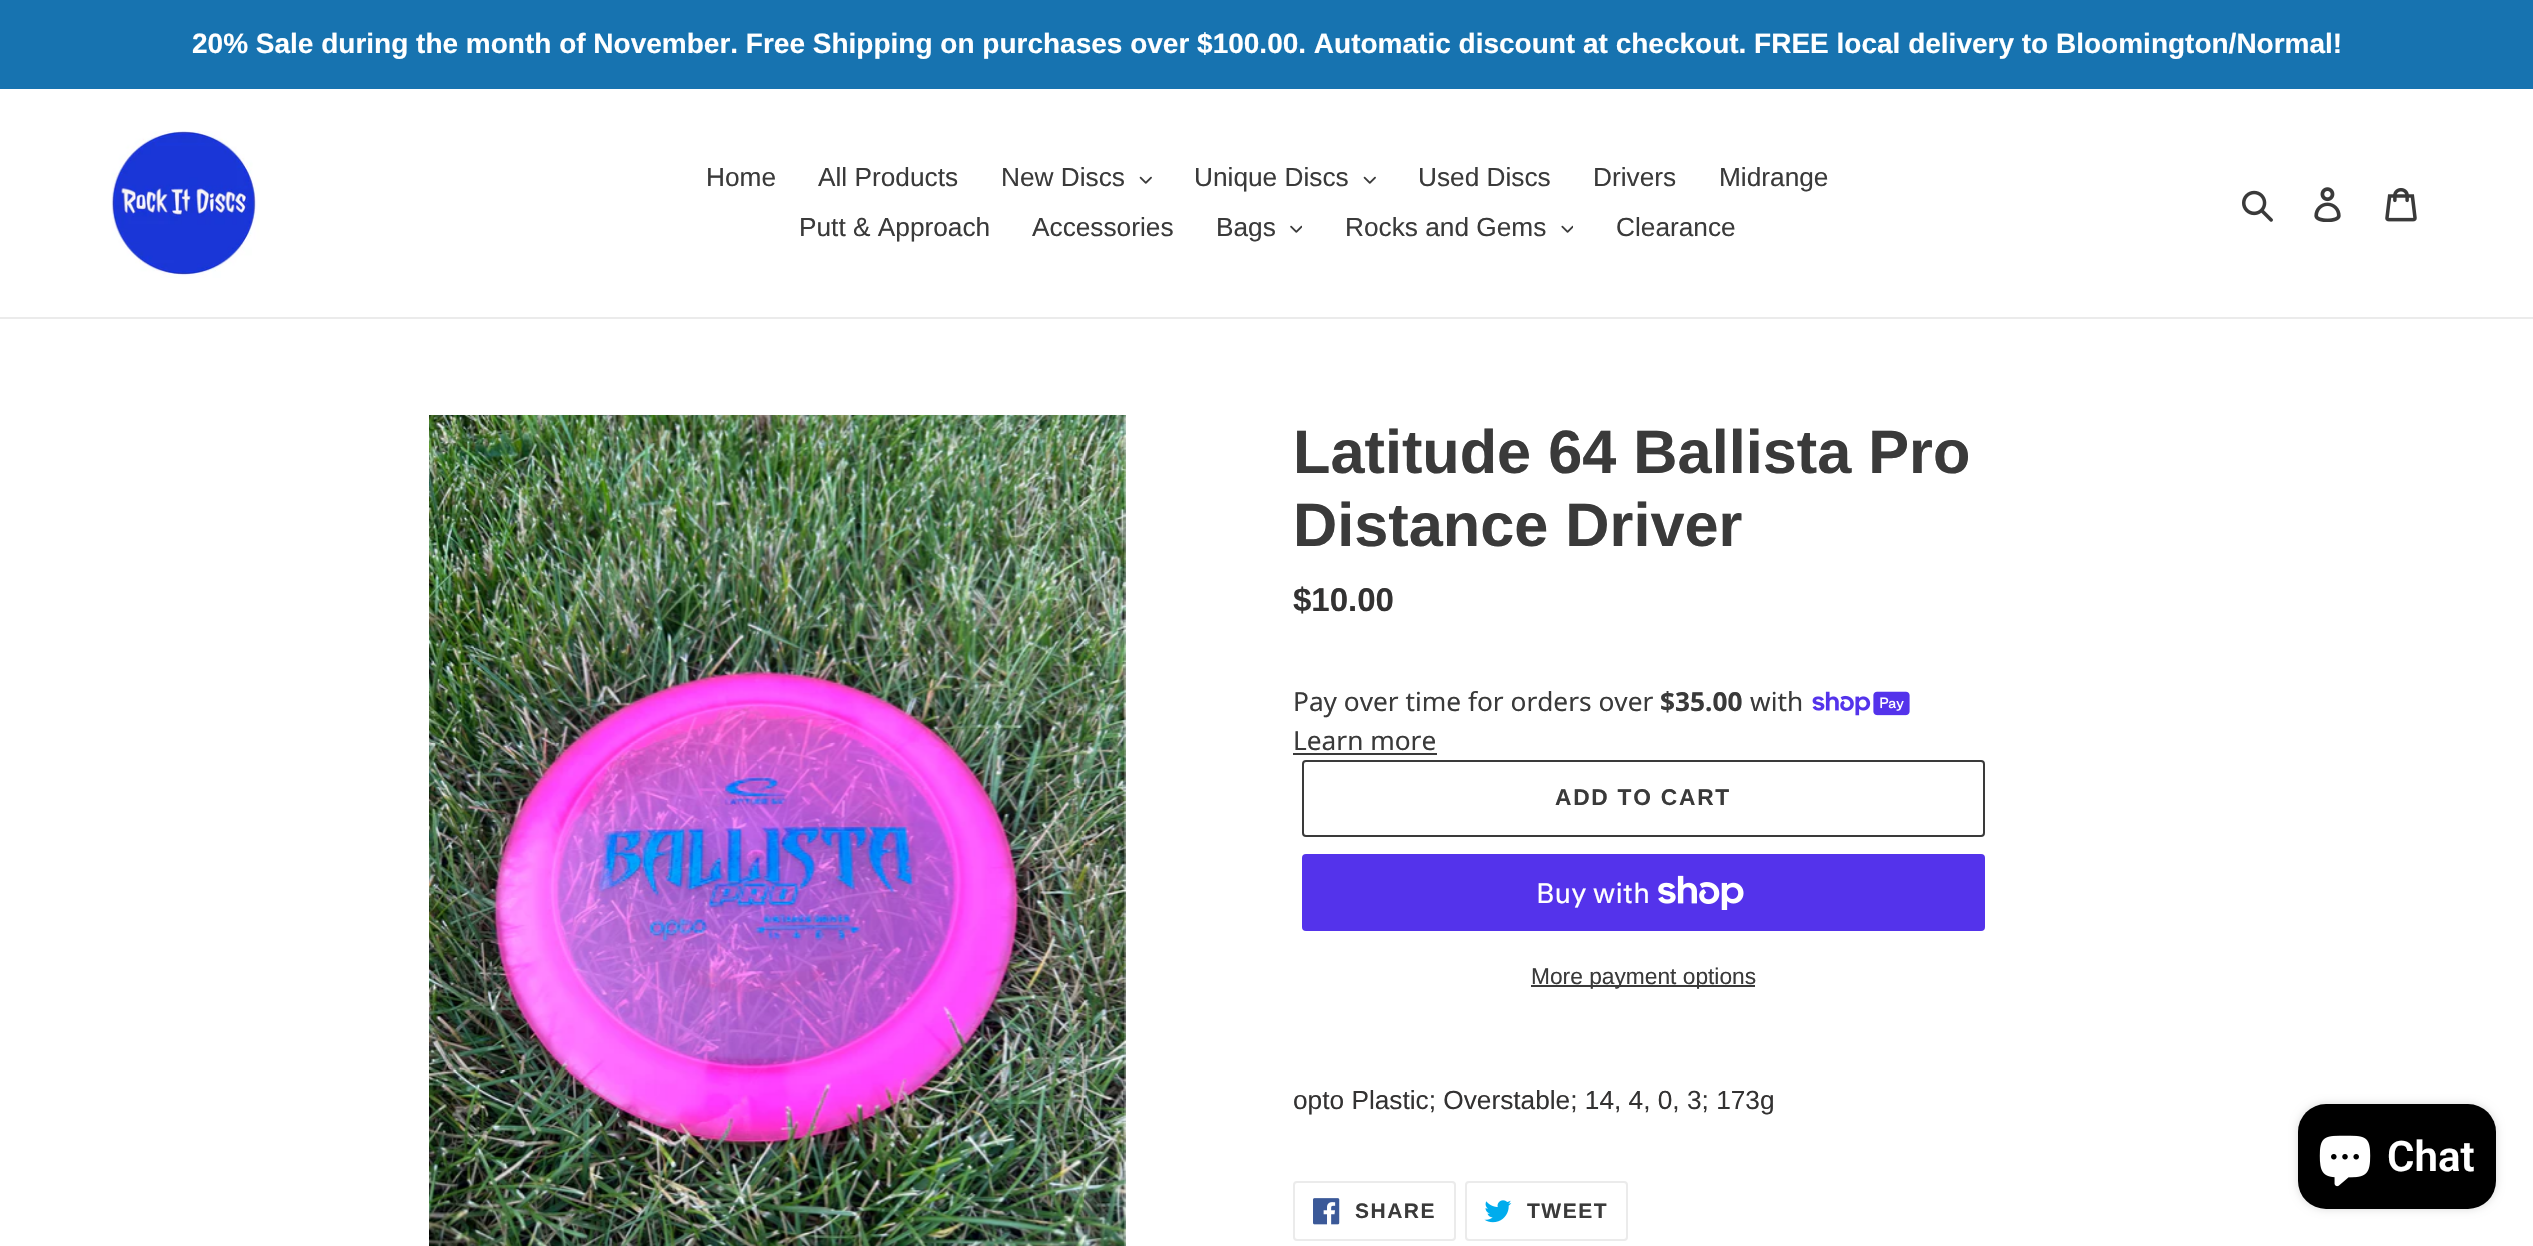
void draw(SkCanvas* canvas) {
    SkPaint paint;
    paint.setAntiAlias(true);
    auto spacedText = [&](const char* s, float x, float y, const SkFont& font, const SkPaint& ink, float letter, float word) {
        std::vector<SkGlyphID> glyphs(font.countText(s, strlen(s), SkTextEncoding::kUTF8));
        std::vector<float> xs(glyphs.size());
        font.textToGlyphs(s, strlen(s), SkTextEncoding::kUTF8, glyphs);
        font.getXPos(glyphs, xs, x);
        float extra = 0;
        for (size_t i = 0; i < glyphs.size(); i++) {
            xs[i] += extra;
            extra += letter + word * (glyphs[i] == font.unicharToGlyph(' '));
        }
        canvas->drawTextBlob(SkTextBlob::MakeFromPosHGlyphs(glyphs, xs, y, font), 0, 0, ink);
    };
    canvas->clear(0xFFFFFFFF);
    paint.setColor(0xFF1773B0);
    canvas->drawRect(SkRect::MakeXYWH(0, 0, 2533, 89), paint);
    SkFont font1(fontMgr->matchFamilyStyle("Liberation Sans", SkFontStyle::Bold()), 28);
    font1.setSubpixel(true);
    paint.setColor(0xFFFFFFFF);
    canvas->drawString("20% Sale during the month of November. Free Shipping on purchases over $100.00. Automatic discount at checkout. FREE local delivery to Bloomington/Normal!", 192, 53, font1, paint);
    paint.setColor(0xFFEBEBEB);
    canvas->drawRect(SkRect::MakeXYWH(0, 317, 2533, 2), paint);
    canvas->drawImageRect(SkImages::DeferredFromEncodedData(SkData::MakeFromFileName("img1.png")), SkRect::MakeXYWH(111, 131, 149, 147), SkSamplingOptions());
    SkFont font2(fontMgr->matchFamilyStyle("Liberation Sans", SkFontStyle::Normal()), 26.25f);
    font2.setSubpixel(true);
    paint.setColor(0xFF3A3A3A);
    canvas->drawString("Home", 706, 186, font2, paint);
    canvas->drawString("All Products", 818, 186, font2, paint);
    canvas->drawString("New Discs", 1001, 186, font2, paint);
    canvas->drawImageRect(SkImages::DeferredFromEncodedData(SkData::MakeFromFileName("img2.png")), SkRect::MakeXYWH(1139, 176, 13, 8), SkSamplingOptions());
    canvas->drawString("Unique Discs", 1194, 186, font2, paint);
    canvas->drawImageRect(SkImages::DeferredFromEncodedData(SkData::MakeFromFileName("img2.png")), SkRect::MakeXYWH(1363, 176, 13, 8), SkSamplingOptions());
    canvas->drawString("Used Discs", 1418, 186, font2, paint);
    canvas->drawString("Drivers", 1593, 186, font2, paint);
    canvas->drawString("Midrange", 1719, 186, font2, paint);
    canvas->drawString("Putt & Approach", 799, 236, font2, paint);
    canvas->drawString("Accessories", 1032, 236, font2, paint);
    canvas->drawString("Bags", 1216, 236, font2, paint);
    canvas->drawImageRect(SkImages::DeferredFromEncodedData(SkData::MakeFromFileName("img3.png")), SkRect::MakeXYWH(1290, 225, 12, 8), SkSamplingOptions());
    canvas->drawString("Rocks and Gems", 1345, 236, font2, paint);
    canvas->drawImageRect(SkImages::DeferredFromEncodedData(SkData::MakeFromFileName("img4.png")), SkRect::MakeXYWH(1561, 225, 12, 8), SkSamplingOptions());
    canvas->drawString("Clearance", 1616, 236, font2, paint);
    canvas->drawImageRect(SkImages::DeferredFromEncodedData(SkData::MakeFromFileName("img5.png")), SkRect::MakeXYWH(2242, 190, 31, 32), SkSamplingOptions());
    canvas->drawImageRect(SkImages::DeferredFromEncodedData(SkData::MakeFromFileName("img6.png")), SkRect::MakeXYWH(2314, 187, 27, 35), SkSamplingOptions());
    canvas->drawImageRect(SkImages::DeferredFromEncodedData(SkData::MakeFromFileName("img7.png")), SkRect::MakeXYWH(2385, 188, 32, 34), SkSamplingOptions());
    canvas->drawImageRect(SkImages::DeferredFromEncodedData(SkData::MakeFromFileName("img8.png")), SkRect::MakeXYWH(429, 415, 697, 831), SkSamplingOptions());
    SkFont font3(fontMgr->matchFamilyStyle("Liberation Sans", SkFontStyle::Bold()), 61.25f);
    font3.setSubpixel(true);
    canvas->drawString("Latitude 64 Ballista Pro", 1293, 473, font3, paint);
    canvas->drawString("Distance Driver", 1293, 546, font3, paint);
    SkFont font4(fontMgr->matchFamilyStyle("Liberation Sans", SkFontStyle::Bold()), 33);
    font4.setSubpixel(true);
    paint.setColor(0xFF333232);
    canvas->drawString("$10.00", 1293, 611, font4, paint);
    SkFont font5(fontMgr->matchFamilyStyle("Noto Sans", SkFontStyle::Normal()), 26.25f);
    font5.setSubpixel(true);
    paint.setColor(0xFF3A3A3A);
    canvas->drawString("Pay over time for orders over", 1293, 711, font5, paint);
    SkFont font6(fontMgr->matchFamilyStyle("Noto Sans", SkFontStyle::Bold()), 26.25f);
    font6.setSubpixel(true);
    canvas->drawString("$35.00", 1660, 711, font6, paint);
    canvas->drawString("with", 1750, 711, font5, paint);
    canvas->drawImageRect(SkImages::DeferredFromEncodedData(SkData::MakeFromFileName("img9.png")), SkRect::MakeXYWH(1812, 691, 98, 25), SkSamplingOptions());
    canvas->drawString("Learn more", 1293, 750, font5, paint);
    canvas->drawRect(SkRect::MakeXYWH(1293, 753, 144, 2), paint);
    paint.setStyle(SkPaint::kStroke_Style);
    paint.setStrokeWidth(2);
    canvas->drawRoundRect(SkRect::MakeXYWH(1303, 761, 681, 75), 3, 3, paint);
    SkFont font7(fontMgr->matchFamilyStyle("Liberation Sans", SkFontStyle::Bold()), 22.75f);
    font7.setSubpixel(true);
    paint.setStyle(SkPaint::kFill_Style);
    spacedText("ADD TO CART", 1555, 805, font7, paint, 1.75f, 0);
    paint.setColor(0xFF5433EB);
    canvas->drawRoundRect(SkRect::MakeXYWH(1302, 854, 683, 77), 4, 4, paint);
    SkFont font8(fontMgr->matchFamilyStyle("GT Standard", SkFontStyle::Normal()), 28);
    font8.setSubpixel(true);
    paint.setColor(0xFFFFFFFF);
    canvas->drawString("Buy with", 1536, 903, font8, paint);
    canvas->drawImageRect(SkImages::DeferredFromEncodedData(SkData::MakeFromFileName("img10.png")), SkRect::MakeXYWH(1658, 875, 86, 35), SkSamplingOptions());
    paint.setColor(0xFF3A3A3A);
    canvas->drawRect(SkRect::MakeXYWH(1531, 985, 224, 2), paint);
    SkFont font9(fontMgr->matchFamilyStyle("Liberation Sans", SkFontStyle::Normal()), 22.75f);
    font9.setSubpixel(true);
    canvas->drawString("More payment options", 1531, 984, font9, paint);
    paint.setColor(0xFF333232);
    canvas->drawString("opto Plastic; Overstable; 14, 4, 0, 3; 173g", 1293, 1109, font2, paint);
    paint.setStyle(SkPaint::kStroke_Style);
    paint.setColor(0xFFEBEBEB);
    canvas->drawRoundRect(SkRect::MakeXYWH(1294, 1182, 161, 58), 3, 3, paint);
    canvas->drawImageRect(SkImages::DeferredFromEncodedData(SkData::MakeFromFileName("img11.png")), SkRect::MakeXYWH(1313, 1198, 27, 27), SkSamplingOptions());
    SkFont font10(fontMgr->matchFamilyStyle("Liberation Sans", SkFontStyle::Bold()), 21);
    font10.setSubpixel(true);
    paint.setStyle(SkPaint::kFill_Style);
    paint.setColor(0xFF3A3A3A);
    spacedText("SHARE", 1355, 1218, font10, paint, 1.5f, 0);
    paint.setStyle(SkPaint::kStroke_Style);
    paint.setColor(0xFFEBEBEB);
    canvas->drawRoundRect(SkRect::MakeXYWH(1466, 1182, 161, 58), 3, 3, paint);
    canvas->drawImageRect(SkImages::DeferredFromEncodedData(SkData::MakeFromFileName("img12.png")), SkRect::MakeXYWH(1484, 1200, 28, 23), SkSamplingOptions());
    paint.setStyle(SkPaint::kFill_Style);
    paint.setColor(0xFF3A3A3A);
    spacedText("TWEET", 1527, 1218, font10, paint, 1.5f, 0);
    paint.setColor(0x26000000);
    paint.setMaskFilter(SkMaskFilter::MakeBlur(kNormal_SkBlurStyle, 4.5f));
    canvas->drawRoundRect(SkRect::MakeXYWH(2298, 1104, 198, 105), 28, 28, paint);
    paint.setMaskFilter(nullptr);
    paint.setColor(0xFF000000);
    canvas->drawRoundRect(SkRect::MakeXYWH(2298, 1104, 198, 105), 28, 28, paint);
    canvas->drawImageRect(SkImages::DeferredFromEncodedData(SkData::MakeFromFileName("img13.png")), SkRect::MakeXYWH(2319, 1135, 52, 52), SkSamplingOptions());
    SkFont font11(fontMgr->matchFamilyStyle("Roboto", SkFontStyle(600, SkFontStyle::kNormal_Width, SkFontStyle::kUpright_Slant)), 42);
    font11.setSubpixel(true);
    paint.setColor(0xFFFFFFFF);
    canvas->drawString("Chat", 2387, 1171, font11, paint);
}
